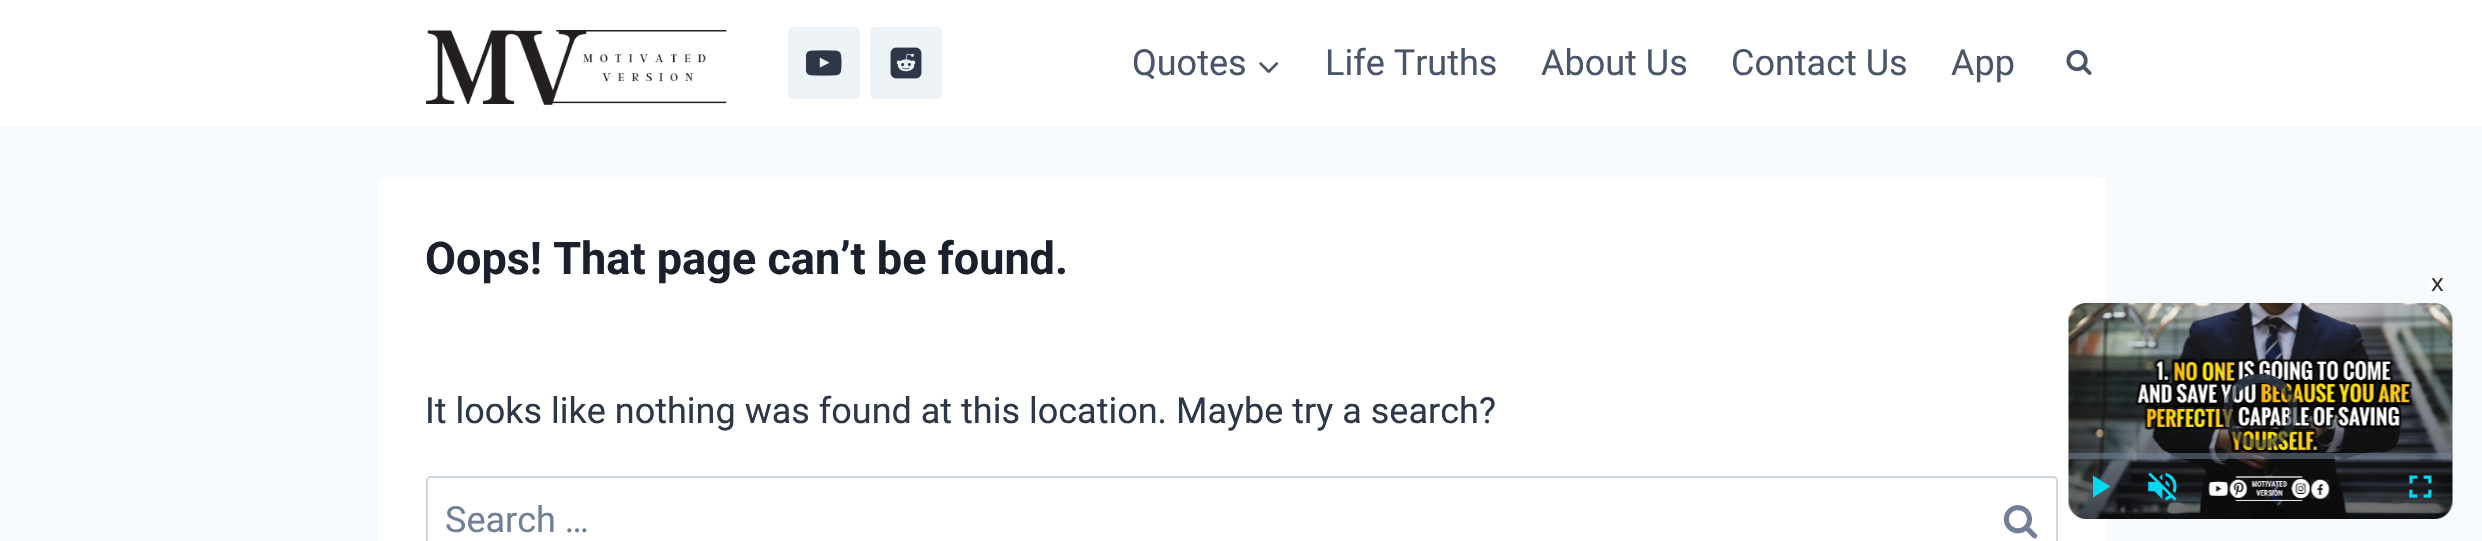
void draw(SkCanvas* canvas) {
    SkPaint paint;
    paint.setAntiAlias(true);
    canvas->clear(0xFFF7FAFC);
    paint.setColor(0xFFFFFFFF);
    canvas->drawRect(SkRect::MakeXYWH(0, 0, 2482, 126), paint);
    canvas->drawImageRect(SkImages::DeferredFromEncodedData(SkData::MakeFromFileName("img1.png")), SkRect::MakeXYWH(426, 30, 301, 75), SkSamplingOptions());
    paint.setColor(0xFFEDF2F7);
    canvas->drawRoundRect(SkRect::MakeXYWH(788, 27, 72, 72), 5, 5, paint);
    canvas->drawImageRect(SkImages::DeferredFromEncodedData(SkData::MakeFromFileName("img2.png")), SkRect::MakeXYWH(806, 50, 36, 26), SkSamplingOptions());
    canvas->drawRoundRect(SkRect::MakeXYWH(870, 27, 72, 72), 5, 5, paint);
    canvas->drawImageRect(SkImages::DeferredFromEncodedData(SkData::MakeFromFileName("img3.png")), SkRect::MakeXYWH(890, 47, 32, 32), SkSamplingOptions());
    SkFont font1(fontMgr->matchFamilyStyle("Roboto", SkFontStyle::Normal()), 36);
    font1.setSubpixel(true);
    paint.setColor(0xFF4A5568);
    canvas->drawString("Quotes", 1132, 75, font1, paint);
    canvas->drawImageRect(SkImages::DeferredFromEncodedData(SkData::MakeFromFileName("img4.png")), SkRect::MakeXYWH(1259, 62, 20, 11), SkSamplingOptions());
    canvas->drawString("Life Truths", 1325, 75, font1, paint);
    canvas->drawString("About Us", 1541, 75, font1, paint);
    canvas->drawString("Contact Us", 1731, 75, font1, paint);
    canvas->drawString("App", 1951, 75, font1, paint);
    canvas->drawImageRect(SkImages::DeferredFromEncodedData(SkData::MakeFromFileName("img5.png")), SkRect::MakeXYWH(2066, 49, 26, 26), SkSamplingOptions());
    paint.setColor(0xFFFFFFFF);
    canvas->drawRoundRect(SkRect::MakeXYWH(378, 177, 1728, 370), 6, 6, paint);
    SkFont font2(fontMgr->matchFamilyStyle("Roboto", SkFontStyle::Bold()), 45);
    font2.setSubpixel(true);
    paint.setColor(0xFF1A202C);
    canvas->drawString("Oops! That page can’t be found.", 425, 274, font2, paint);
    paint.setColor(0xFF2D3748);
    canvas->drawString("It looks like nothing was found at this location. Maybe try a search?", 425, 423, font1, paint);
    paint.setStyle(SkPaint::kStroke_Style);
    paint.setStrokeWidth(2);
    paint.setColor(0xFFCBD5E0);
    canvas->drawRoundRect(SkRect::MakeXYWH(427, 477, 1630, 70), 4, 4, paint);
    paint.setStyle(SkPaint::kFill_Style);
    paint.setColor(0xFF718096);
    canvas->drawString("Search …", 445, 532, font1, paint);
    canvas->drawImageRect(SkImages::DeferredFromEncodedData(SkData::MakeFromFileName("img6.png")), SkRect::MakeXYWH(2003, 505, 35, 34), SkSamplingOptions());
    paint.setColor(0xFFFAFCFD);
    canvas->drawCircle(2438, 282, 12, paint);
    SkFont font3(fontMgr->matchFamilyStyle("Noto Sans", SkFontStyle::Normal()), 24);
    font3.setSubpixel(true);
    paint.setColor(0xFF313232);
    canvas->drawString("x", 2431, 291, font3, paint);
    canvas->drawImageRect(SkImages::DeferredFromEncodedData(SkData::MakeFromFileName("img7.png")), SkRect::MakeXYWH(2068, 303, 385, 216), SkSamplingOptions());
    paint.setStyle(SkPaint::kStroke_Style);
    paint.setStrokeWidth(9);
    paint.setColor(0x962B333F);
    canvas->drawCircle(2260.5f, 411.5f, 33, paint);
    canvas->drawPath(SkPathBuilder().moveTo(2237, 387.5f).cubicTo(2250, 375, 2271, 375, 2284, 387.5f).detach(), paint);
    canvas->drawPath(SkPathBuilder().moveTo(2237, 387.5f).cubicTo(2250, 375, 2271, 375, 2284, 387.5f).detach(), paint);
    paint.setStyle(SkPaint::kFill_Style);
    paint.setColor(0x8073859F);
    canvas->drawRect(SkRect::MakeXYWH(2069, 453, 384, 6), paint);
    paint.setColor(0xFF03D8F3);
    canvas->drawPath(SkPathBuilder().moveTo(2093, 475.5f).lineTo(2093, 497.5f).lineTo(2110.5f, 486.5f).close().detach(), paint);
    canvas->drawImageRect(SkImages::DeferredFromEncodedData(SkData::MakeFromFileName("img8.png")), SkRect::MakeXYWH(2148, 472, 29, 29), SkSamplingOptions());
    canvas->drawImageRect(SkImages::DeferredFromEncodedData(SkData::MakeFromFileName("img9.png")), SkRect::MakeXYWH(2409, 475, 23, 23), SkSamplingOptions());
}
